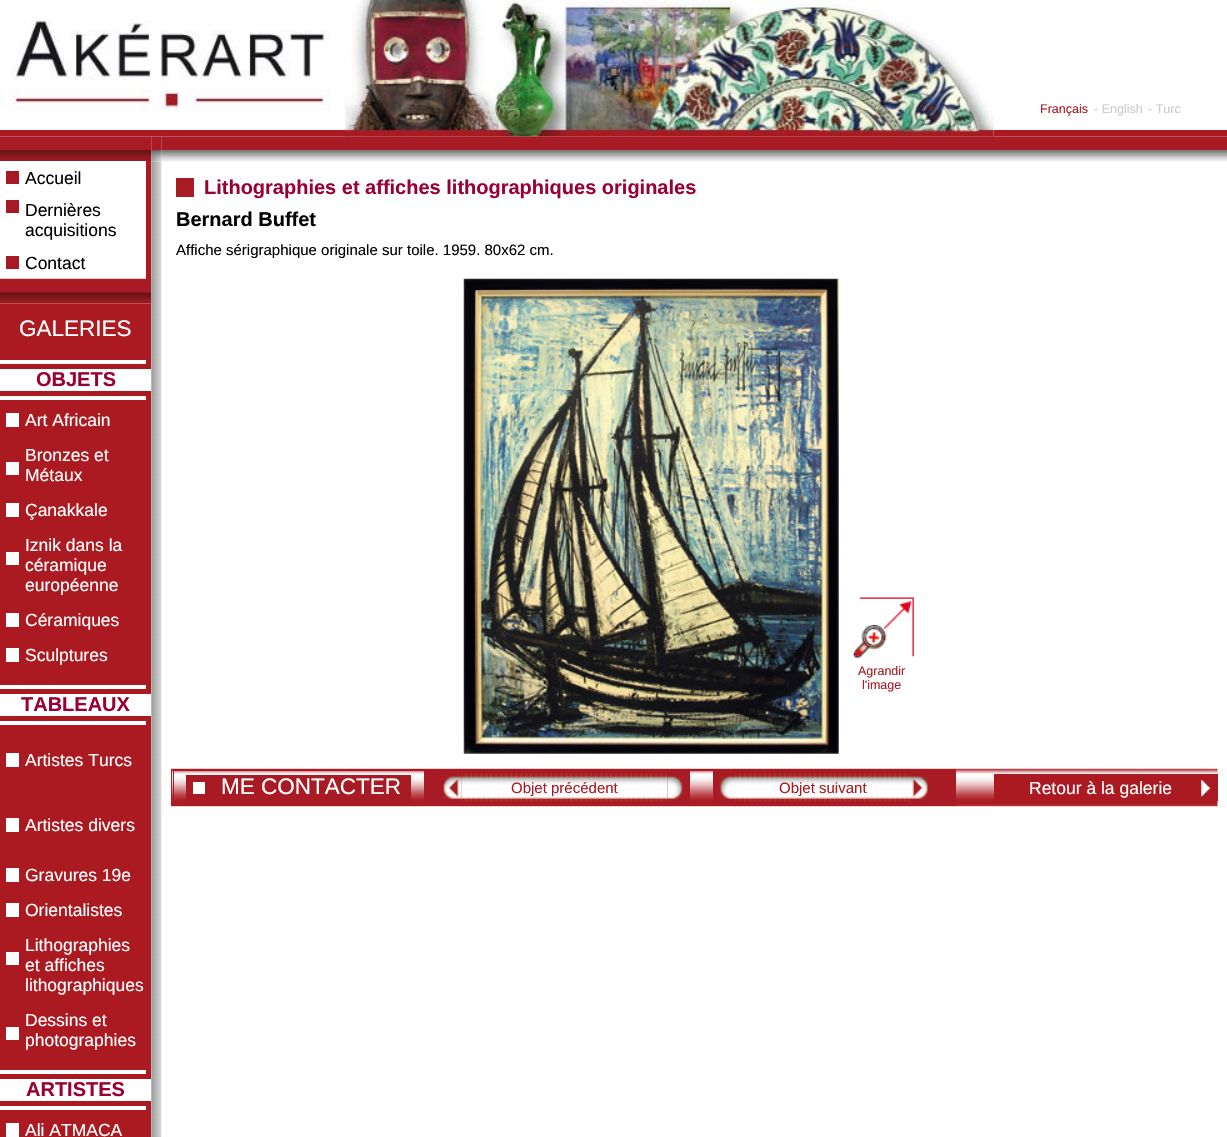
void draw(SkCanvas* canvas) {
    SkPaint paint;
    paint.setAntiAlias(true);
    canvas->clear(0xFFFFFFFF);
    canvas->drawImageRect(SkImages::DeferredFromEncodedData(SkData::MakeFromFileName("img1.png")), SkRect::MakeXYWH(0, 20, 330, 91), SkSamplingOptions());
    canvas->drawImageRect(SkImages::DeferredFromEncodedData(SkData::MakeFromFileName("img5.png")), SkRect::MakeXYWH(161, 136, 1066, 26), SkSamplingOptions());
    canvas->drawImageRect(SkImages::DeferredFromEncodedData(SkData::MakeFromFileName("img2.png")), SkRect::MakeXYWH(345, 0, 649, 137), SkSamplingOptions());
    SkFont font1(fontMgr->matchFamilyStyle("Liberation Sans", SkFontStyle::Normal()), 12.5f);
    font1.setSubpixel(true);
    paint.setColor(0xFFAB1A21);
    canvas->drawString("Français", 1040, 113, font1, paint);
    paint.setColor(0xFFCCCCCC);
    canvas->drawString("- English", 1094, 113, font1, paint);
    canvas->drawString("- Turc", 1148, 113, font1, paint);
    paint.setColor(0xFFAB1A21);
    canvas->drawRect(SkRect::MakeXYWH(0, 130, 345, 6), paint);
    canvas->drawRect(SkRect::MakeXYWH(994, 130, 233, 6), paint);
    canvas->drawImageRect(SkImages::DeferredFromEncodedData(SkData::MakeFromFileName("img3.png")), SkRect::MakeXYWH(0, 136, 152, 26), SkSamplingOptions());
    paint.setColor(0xFFFFFFFF);
    canvas->drawRect(SkRect::MakeXYWH(0, 161, 151, 1), paint);
    paint.setColor(0xFFAB1A21);
    canvas->drawRect(SkRect::MakeXYWH(146, 161, 5, 118), paint);
    canvas->drawImageRect(SkImages::DeferredFromEncodedData(SkData::MakeFromFileName("img6.png")), SkRect::MakeXYWH(0, 278, 152, 26), SkSamplingOptions());
    canvas->drawImageRect(SkImages::DeferredFromEncodedData(SkData::MakeFromFileName("img7.png")), SkRect::MakeXYWH(151, 161, 11, 976), SkSamplingOptions());
    canvas->drawImageRect(SkImages::DeferredFromEncodedData(SkData::MakeFromFileName("img4.png")), SkRect::MakeXYWH(151, 136, 11, 26), SkSamplingOptions());
    paint.setColor(0xFFA71A23);
    canvas->drawRect(SkRect::MakeXYWH(6, 171, 13, 13), paint);
    SkFont font2(fontMgr->matchFamilyStyle("Liberation Sans", SkFontStyle::Normal()), 17.5f);
    font2.setSubpixel(true);
    paint.setColor(0xFF000000);
    canvas->drawString("Accueil", 25, 184, font2, paint);
    paint.setColor(0xFFA71A23);
    canvas->drawRect(SkRect::MakeXYWH(6, 200, 13, 13), paint);
    paint.setColor(0xFF000000);
    canvas->drawString("Dernières", 25, 216, font2, paint);
    canvas->drawString("acquisitions", 25, 236, font2, paint);
    paint.setColor(0xFFA71A23);
    canvas->drawRect(SkRect::MakeXYWH(6, 256, 13, 13), paint);
    paint.setColor(0xFF000000);
    canvas->drawString("Contact", 25, 269, font2, paint);
    paint.setColor(0xFFAB1A21);
    canvas->drawRect(SkRect::MakeXYWH(0, 304, 151, 56), paint);
    SkFont font3(fontMgr->matchFamilyStyle("Liberation Sans", SkFontStyle::Normal()), 22.5f);
    font3.setSubpixel(true);
    paint.setColor(0xFFFFFFFF);
    canvas->drawString("GALERIES", 19, 336, font3, paint);
    paint.setColor(0xFFAB1A21);
    canvas->drawRect(SkRect::MakeXYWH(146, 360, 5, 4), paint);
    canvas->drawRect(SkRect::MakeXYWH(0, 364, 151, 5), paint);
    SkFont font4(fontMgr->matchFamilyStyle("Liberation Sans", SkFontStyle::Bold()), 20);
    font4.setSubpixel(true);
    paint.setColor(0xFF990033);
    canvas->drawString("OBJETS", 36, 386, font4, paint);
    paint.setColor(0xFFAB1A21);
    canvas->drawRect(SkRect::MakeXYWH(0, 391, 151, 5), paint);
    canvas->drawRect(SkRect::MakeXYWH(146, 396, 5, 4), paint);
    canvas->drawRect(SkRect::MakeXYWH(0, 400, 151, 10), paint);
    canvas->drawRect(SkRect::MakeXYWH(0, 410, 151, 35), paint);
    paint.setColor(0xFFFFFFFF);
    canvas->drawRect(SkRect::MakeXYWH(6, 413, 13, 14), paint);
    canvas->drawString("Art Africain", 25, 426, font2, paint);
    paint.setColor(0xFFAB1A21);
    canvas->drawRect(SkRect::MakeXYWH(0, 445, 151, 55), paint);
    paint.setColor(0xFFFFFFFF);
    canvas->drawRect(SkRect::MakeXYWH(6, 462, 13, 13), paint);
    canvas->drawString("Bronzes et", 25, 461, font2, paint);
    canvas->drawString("Métaux", 25, 481, font2, paint);
    paint.setColor(0xFFAB1A21);
    canvas->drawRect(SkRect::MakeXYWH(0, 500, 151, 35), paint);
    paint.setColor(0xFFFFFFFF);
    canvas->drawRect(SkRect::MakeXYWH(6, 503, 13, 14), paint);
    canvas->drawString("Çanakkale", 25, 516, font2, paint);
    paint.setColor(0xFFAB1A21);
    canvas->drawRect(SkRect::MakeXYWH(0, 535, 151, 75), paint);
    paint.setColor(0xFFFFFFFF);
    canvas->drawRect(SkRect::MakeXYWH(6, 552, 13, 13), paint);
    canvas->drawString("Iznik dans la", 25, 551, font2, paint);
    canvas->drawString("céramique", 25, 571, font2, paint);
    canvas->drawString("européenne", 25, 591, font2, paint);
    paint.setColor(0xFFAB1A21);
    canvas->drawRect(SkRect::MakeXYWH(0, 610, 151, 35), paint);
    paint.setColor(0xFFFFFFFF);
    canvas->drawRect(SkRect::MakeXYWH(6, 613, 13, 14), paint);
    canvas->drawString("Céramiques", 25, 626, font2, paint);
    paint.setColor(0xFFAB1A21);
    canvas->drawRect(SkRect::MakeXYWH(0, 645, 151, 40), paint);
    paint.setColor(0xFFFFFFFF);
    canvas->drawRect(SkRect::MakeXYWH(6, 648, 13, 14), paint);
    canvas->drawString("Sculptures", 25, 661, font2, paint);
    paint.setColor(0xFFAB1A21);
    canvas->drawRect(SkRect::MakeXYWH(146, 685, 5, 4), paint);
    canvas->drawRect(SkRect::MakeXYWH(0, 689, 151, 5), paint);
    paint.setColor(0xFF990033);
    canvas->drawString("TABLEAUX", 21, 711, font4, paint);
    paint.setColor(0xFFAB1A21);
    canvas->drawRect(SkRect::MakeXYWH(0, 716, 151, 5), paint);
    canvas->drawRect(SkRect::MakeXYWH(146, 721, 5, 4), paint);
    canvas->drawRect(SkRect::MakeXYWH(0, 725, 151, 10), paint);
    canvas->drawRect(SkRect::MakeXYWH(0, 735, 151, 65), paint);
    paint.setColor(0xFFFFFFFF);
    canvas->drawRect(SkRect::MakeXYWH(6, 753, 13, 14), paint);
    canvas->drawString("Artistes Turcs", 25, 766, font2, paint);
    paint.setColor(0xFFAB1A21);
    canvas->drawRect(SkRect::MakeXYWH(0, 800, 151, 65), paint);
    paint.setColor(0xFFFFFFFF);
    canvas->drawRect(SkRect::MakeXYWH(6, 818, 13, 14), paint);
    canvas->drawString("Artistes divers", 25, 831, font2, paint);
    paint.setColor(0xFFAB1A21);
    canvas->drawRect(SkRect::MakeXYWH(0, 865, 151, 35), paint);
    paint.setColor(0xFFFFFFFF);
    canvas->drawRect(SkRect::MakeXYWH(6, 868, 13, 14), paint);
    canvas->drawString("Gravures 19e", 25, 881, font2, paint);
    paint.setColor(0xFFAB1A21);
    canvas->drawRect(SkRect::MakeXYWH(0, 900, 151, 35), paint);
    paint.setColor(0xFFFFFFFF);
    canvas->drawRect(SkRect::MakeXYWH(6, 903, 13, 14), paint);
    canvas->drawString("Orientalistes", 25, 916, font2, paint);
    paint.setColor(0xFFAB1A21);
    canvas->drawRect(SkRect::MakeXYWH(0, 935, 151, 75), paint);
    paint.setColor(0xFFFFFFFF);
    canvas->drawRect(SkRect::MakeXYWH(6, 952, 13, 13), paint);
    canvas->drawString("Lithographies", 25, 951, font2, paint);
    canvas->drawString("et affiches", 25, 971, font2, paint);
    canvas->drawString("lithographiques", 25, 991, font2, paint);
    paint.setColor(0xFFAB1A21);
    canvas->drawRect(SkRect::MakeXYWH(0, 1010, 151, 60), paint);
    paint.setColor(0xFFFFFFFF);
    canvas->drawRect(SkRect::MakeXYWH(6, 1027, 13, 13), paint);
    canvas->drawString("Dessins et", 25, 1026, font2, paint);
    canvas->drawString("photographies", 25, 1046, font2, paint);
    paint.setColor(0xFFAB1A21);
    canvas->drawRect(SkRect::MakeXYWH(146, 1070, 5, 4), paint);
    canvas->drawRect(SkRect::MakeXYWH(0, 1074, 151, 5), paint);
    paint.setColor(0xFF990033);
    canvas->drawString("ARTISTES", 26, 1096, font4, paint);
    paint.setColor(0xFFAB1A21);
    canvas->drawRect(SkRect::MakeXYWH(0, 1101, 151, 5), paint);
    canvas->drawRect(SkRect::MakeXYWH(146, 1106, 5, 4), paint);
    canvas->drawRect(SkRect::MakeXYWH(0, 1110, 151, 10), paint);
    canvas->drawRect(SkRect::MakeXYWH(0, 1120, 151, 17), paint);
    paint.setColor(0xFFFFFFFF);
    canvas->drawRect(SkRect::MakeXYWH(6, 1123, 13, 14), paint);
    canvas->drawString("Ali ATMACA", 25, 1136, font2, paint);
    paint.setColor(0xFFA71D24);
    canvas->drawRect(SkRect::MakeXYWH(176, 178, 18, 19), paint);
    paint.setColor(0xFF990033);
    canvas->drawString("Lithographies et affiches lithographiques originales", 204, 194, font4, paint);
    paint.setColor(0xFF000000);
    canvas->drawString("Bernard Buffet", 176, 226, font4, paint);
    SkFont font5(fontMgr->matchFamilyStyle("Liberation Sans", SkFontStyle::Normal()), 15);
    font5.setSubpixel(true);
    canvas->drawString("Affiche sérigraphique originale sur toile. 1959. 80x62 cm.", 176, 255, font5, paint);
    canvas->drawImageRect(SkImages::DeferredFromEncodedData(SkData::MakeFromFileName("img8.png")), SkRect::MakeXYWH(463, 278, 376, 476), SkSamplingOptions());
    canvas->drawImageRect(SkImages::DeferredFromEncodedData(SkData::MakeFromFileName("img9.png")), SkRect::MakeXYWH(853, 597, 61, 62), SkSamplingOptions());
    paint.setColor(0xFFAB1A21);
    canvas->drawString("Agrandir", 858, 675, font1, paint);
    canvas->drawString("l'image", 862, 689, font1, paint);
    canvas->drawImageRect(SkImages::DeferredFromEncodedData(SkData::MakeFromFileName("img10.png")), SkRect::MakeXYWH(171, 768, 1047, 39), SkSamplingOptions());
    paint.setStyle(SkPaint::kStroke_Style);
    paint.setStrokeWidth(1);
    paint.setColor(0xFFA81B24);
    canvas->drawRect(SkRect::MakeXYWH(171.5f, 769.5f, 784, 36), paint);
    canvas->drawRect(SkRect::MakeXYWH(173.5f, 770.5f, 251, 34), paint);
    paint.setStyle(SkPaint::kFill_Style);
    canvas->drawRect(SkRect::MakeXYWH(186, 775, 225, 26), paint);
    paint.setColor(0xFFFFFFFF);
    canvas->drawRect(SkRect::MakeXYWH(193, 782, 12, 12), paint);
    canvas->drawString("ME CONTACTER", 221, 794, font3, paint);
    paint.setColor(0xFFA81B24);
    canvas->drawRect(SkRect::MakeXYWH(425, 770, 264, 35), paint);
    paint.setStyle(SkPaint::kStroke_Style);
    canvas->drawRect(SkRect::MakeXYWH(689.5f, 770.5f, 24, 34), paint);
    canvas->drawImageRect(SkImages::DeferredFromEncodedData(SkData::MakeFromFileName("img12.png")), SkRect::MakeXYWH(461, 773, 207, 29), SkSamplingOptions());
    canvas->drawImageRect(SkImages::DeferredFromEncodedData(SkData::MakeFromFileName("img11.png")), SkRect::MakeXYWH(443, 776, 19, 23), SkSamplingOptions());
    paint.setStyle(SkPaint::kFill_Style);
    paint.setColor(0xFFAB1A21);
    canvas->drawString("Objet précédent", 511, 793, font5, paint);
    canvas->drawImageRect(SkImages::DeferredFromEncodedData(SkData::MakeFromFileName("img13.png")), SkRect::MakeXYWH(667, 776, 16, 23), SkSamplingOptions());
    paint.setColor(0xFFA81B24);
    canvas->drawRect(SkRect::MakeXYWH(714, 770, 241, 35), paint);
    canvas->drawImageRect(SkImages::DeferredFromEncodedData(SkData::MakeFromFileName("img14.png")), SkRect::MakeXYWH(719, 776, 16, 23), SkSamplingOptions());
    canvas->drawImageRect(SkImages::DeferredFromEncodedData(SkData::MakeFromFileName("img15.png")), SkRect::MakeXYWH(735, 773, 175, 29), SkSamplingOptions());
    paint.setColor(0xFFAB1A21);
    canvas->drawString("Objet suivant", 779, 793, font5, paint);
    canvas->drawImageRect(SkImages::DeferredFromEncodedData(SkData::MakeFromFileName("img16.png")), SkRect::MakeXYWH(910, 776, 18, 23), SkSamplingOptions());
    canvas->drawRect(SkRect::MakeXYWH(994, 774, 224, 27), paint);
    paint.setColor(0xFFFFFFFF);
    canvas->drawString("Retour à la galerie", 1029, 794, font2, paint);
    canvas->drawImageRect(SkImages::DeferredFromEncodedData(SkData::MakeFromFileName("img17.png")), SkRect::MakeXYWH(1201, 779, 10, 18), SkSamplingOptions());
}
